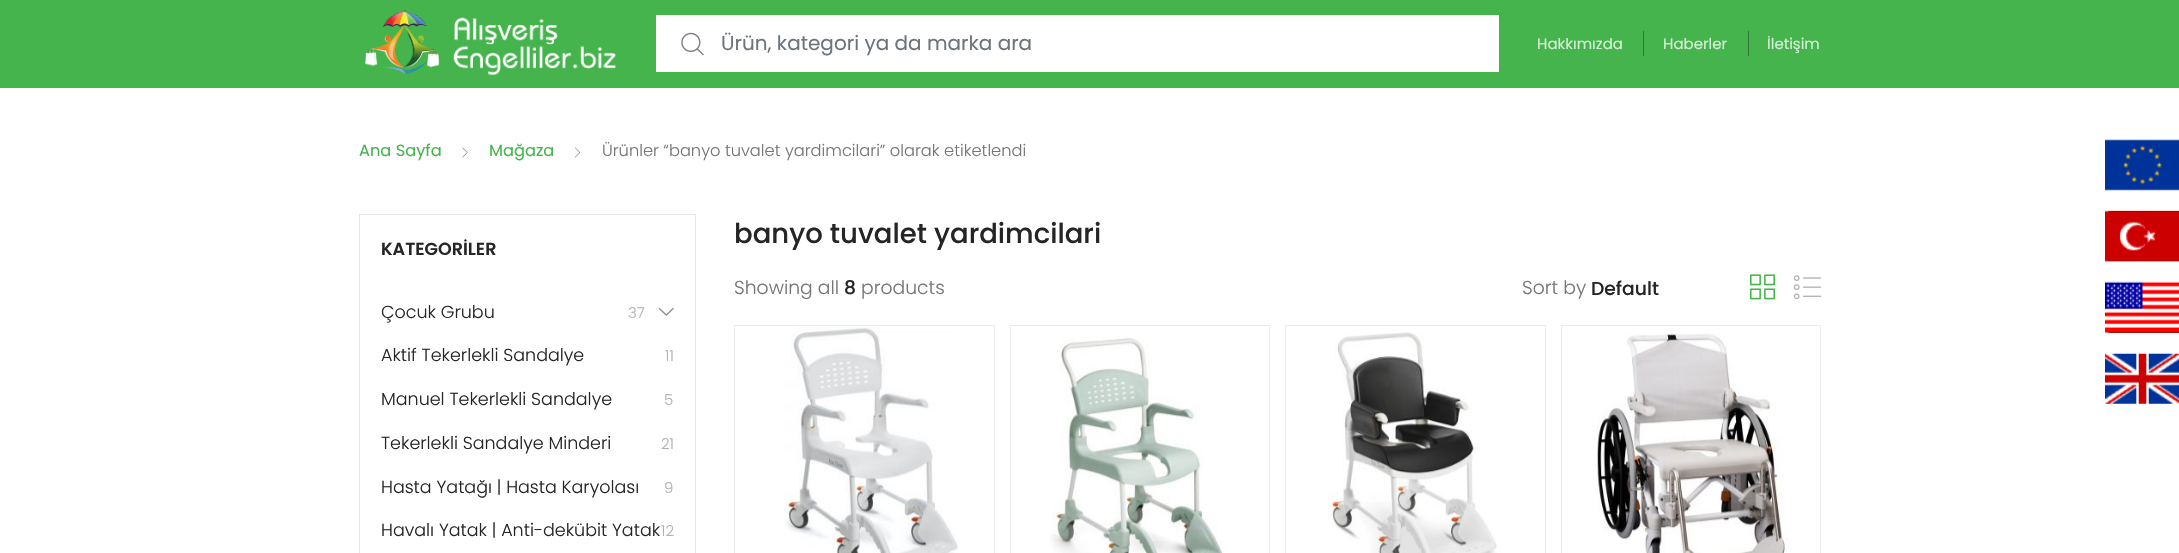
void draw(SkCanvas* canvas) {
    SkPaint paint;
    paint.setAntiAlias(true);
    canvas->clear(0xFFFFFFFF);
    paint.setColor(0xFF45B44D);
    canvas->drawRect(SkRect::MakeXYWH(0, 0, 2179, 88), paint);
    canvas->drawImageRect(SkImages::DeferredFromEncodedData(SkData::MakeFromFileName("img1.png")), SkRect::MakeXYWH(365, 10, 251, 66), SkSamplingOptions());
    paint.setColor(0xFFFFFFFF);
    canvas->drawRect(SkRect::MakeXYWH(656, 15, 843, 57), paint);
    canvas->drawImageRect(SkImages::DeferredFromEncodedData(SkData::MakeFromFileName("img2.png")), SkRect::MakeXYWH(681, 32, 23, 24), SkSamplingOptions());
    SkFont font1(fontMgr->matchFamilyStyle("Poppins", SkFontStyle::Normal()), 20);
    font1.setSubpixel(true);
    paint.setColor(0xFF6C757D);
    canvas->drawString("Ürün, kategori ya da marka ara", 721, 50, font1, paint);
    SkFont font2(fontMgr->matchFamilyStyle("Poppins", SkFontStyle::Normal()), 15);
    font2.setSubpixel(true);
    paint.setColor(0xFFD5EFD7);
    canvas->drawString("Hakkımızda", 1537, 49, font2, paint);
    paint.setColor(0xFF2D7532);
    canvas->drawRect(SkRect::MakeXYWH(1643, 31, 1, 25), paint);
    paint.setColor(0xFFD5EFD7);
    canvas->drawString("Haberler", 1663, 49, font2, paint);
    paint.setColor(0xFF2D7532);
    canvas->drawRect(SkRect::MakeXYWH(1748, 31, 1, 25), paint);
    paint.setColor(0xFFD5EFD7);
    canvas->drawString("İletişim", 1767, 49, font2, paint);
    SkFont font3(fontMgr->matchFamilyStyle("Poppins", SkFontStyle::Normal()), 16.25f);
    font3.setSubpixel(true);
    paint.setColor(0xFF45B44D);
    canvas->drawString("Ana Sayfa", 359, 156, font3, paint);
    canvas->drawImageRect(SkImages::DeferredFromEncodedData(SkData::MakeFromFileName("img3.png")), SkRect::MakeXYWH(462, 147, 6, 11), SkSamplingOptions());
    canvas->drawString("Mağaza", 489, 156, font3, paint);
    canvas->drawImageRect(SkImages::DeferredFromEncodedData(SkData::MakeFromFileName("img4.png")), SkRect::MakeXYWH(574, 147, 7, 11), SkSamplingOptions());
    SkFont font4(fontMgr->matchFamilyStyle("Poppins", SkFontStyle(300, SkFontStyle::kNormal_Width, SkFontStyle::kUpright_Slant)), 16.25f);
    font4.setSubpixel(true);
    paint.setColor(0xFF757575);
    canvas->drawString("Ürünler “banyo tuvalet yardimcilari” olarak etiketlendi", 602, 156, font4, paint);
    paint.setStyle(SkPaint::kStroke_Style);
    paint.setStrokeWidth(1);
    paint.setColor(0xFFE6E6E6);
    canvas->drawRect(SkRect::MakeXYWH(359.5f, 214.5f, 336, 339), paint);
    SkFont font5(fontMgr->matchFamilyStyle("Poppins", SkFontStyle(600, SkFontStyle::kNormal_Width, SkFontStyle::kUpright_Slant)), 17.5f);
    font5.setSubpixel(true);
    paint.setStyle(SkPaint::kFill_Style);
    paint.setColor(0xFF252525);
    canvas->drawString("KATEGORİLER", 381, 255, font5, paint);
    SkFont font6(fontMgr->matchFamilyStyle("Poppins", SkFontStyle(300, SkFontStyle::kNormal_Width, SkFontStyle::kUpright_Slant)), 17.5f);
    font6.setSubpixel(true);
    canvas->drawString("Çocuk Grubu", 381, 318, font6, paint);
    SkFont font7(fontMgr->matchFamilyStyle("Poppins", SkFontStyle(300, SkFontStyle::kNormal_Width, SkFontStyle::kUpright_Slant)), 15);
    font7.setSubpixel(true);
    paint.setColor(0xFFB2B2B2);
    canvas->drawString("37", 628, 318, font7, paint);
    canvas->drawImageRect(SkImages::DeferredFromEncodedData(SkData::MakeFromFileName("img5.png")), SkRect::MakeXYWH(658, 308, 16, 8), SkSamplingOptions());
    paint.setColor(0xFF252525);
    canvas->drawString("Aktif Tekerlekli Sandalye", 381, 361, font6, paint);
    paint.setColor(0xFFB2B2B2);
    canvas->drawString("11", 665, 361, font7, paint);
    paint.setColor(0xFF252525);
    canvas->drawString("Manuel Tekerlekli Sandalye", 381, 405, font6, paint);
    paint.setColor(0xFFB2B2B2);
    canvas->drawString("5", 664, 405, font7, paint);
    paint.setColor(0xFF252525);
    canvas->drawString("Tekerlekli Sandalye Minderi", 381, 449, font6, paint);
    paint.setColor(0xFFB2B2B2);
    canvas->drawString("21", 661, 449, font7, paint);
    paint.setColor(0xFF252525);
    canvas->drawString("Hasta Yatağı | Hasta Karyolası", 381, 493, font6, paint);
    paint.setColor(0xFFB2B2B2);
    canvas->drawString("9", 664, 493, font7, paint);
    paint.setColor(0xFF252525);
    canvas->drawString("Havalı Yatak | Anti-dekübit Yatak", 381, 536, font6, paint);
    paint.setColor(0xFFB2B2B2);
    canvas->drawString("12", 661, 536, font7, paint);
    SkFont font8(fontMgr->matchFamilyStyle("Poppins", SkFontStyle(500, SkFontStyle::kNormal_Width, SkFontStyle::kUpright_Slant)), 27.5f);
    font8.setSubpixel(true);
    paint.setColor(0xFF252525);
    canvas->drawString("banyo tuvalet yardimcilari", 734, 243, font8, paint);
    SkFont font9(fontMgr->matchFamilyStyle("Poppins", SkFontStyle(300, SkFontStyle::kNormal_Width, SkFontStyle::kUpright_Slant)), 18.75f);
    font9.setSubpixel(true);
    paint.setColor(0xFF757575);
    canvas->drawString("Showing all", 734, 294, font9, paint);
    SkFont font10(fontMgr->matchFamilyStyle("Poppins", SkFontStyle(500, SkFontStyle::kNormal_Width, SkFontStyle::kUpright_Slant)), 18.75f);
    font10.setSubpixel(true);
    paint.setColor(0xFF252525);
    canvas->drawString("8", 844, 294, font10, paint);
    paint.setColor(0xFF757575);
    canvas->drawString("products", 861, 294, font9, paint);
    canvas->drawString("Sort by", 1522, 294, font9, paint);
    paint.setColor(0xFF252525);
    canvas->drawString("Default", 1591, 295, font10, paint);
    canvas->drawImageRect(SkImages::DeferredFromEncodedData(SkData::MakeFromFileName("img6.png")), SkRect::MakeXYWH(1750, 274, 25, 26), SkSamplingOptions());
    canvas->drawImageRect(SkImages::DeferredFromEncodedData(SkData::MakeFromFileName("img7.png")), SkRect::MakeXYWH(1793, 275, 29, 25), SkSamplingOptions());
    paint.setStyle(SkPaint::kStroke_Style);
    paint.setColor(0xFFEBEBEB);
    canvas->drawRect(SkRect::MakeXYWH(734.5f, 325.5f, 260, 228), paint);
    canvas->drawImageRect(SkImages::DeferredFromEncodedData(SkData::MakeFromFileName("img8.png")), SkRect::MakeXYWH(784, 327, 174, 226), SkSamplingOptions());
    canvas->drawRect(SkRect::MakeXYWH(1010.5f, 325.5f, 259, 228), paint);
    canvas->drawImageRect(SkImages::DeferredFromEncodedData(SkData::MakeFromFileName("img9.png")), SkRect::MakeXYWH(1050, 338, 174, 215), SkSamplingOptions());
    canvas->drawRect(SkRect::MakeXYWH(1285.5f, 325.5f, 260, 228), paint);
    canvas->drawImageRect(SkImages::DeferredFromEncodedData(SkData::MakeFromFileName("img10.png")), SkRect::MakeXYWH(1327, 332, 170, 221), SkSamplingOptions());
    canvas->drawRect(SkRect::MakeXYWH(1561.5f, 325.5f, 259, 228), paint);
    canvas->drawImageRect(SkImages::DeferredFromEncodedData(SkData::MakeFromFileName("img11.png")), SkRect::MakeXYWH(1597, 333, 190, 220), SkSamplingOptions());
    canvas->drawImageRect(SkImages::DeferredFromEncodedData(SkData::MakeFromFileName("img12.png")), SkRect::MakeXYWH(2105, 139, 74, 52), SkSamplingOptions());
    paint.setStyle(SkPaint::kFill_Style);
    paint.setColor(0xFF212121);
    canvas->drawPath(SkPathBuilder().moveTo(2111, 211).lineTo(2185, 211).lineTo(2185, 261).lineTo(2111, 261).cubicTo(2107.5f, 261, 2105, 258.5f, 2105, 255).lineTo(2105, 217).cubicTo(2105, 213.5f, 2107.5f, 211, 2111, 211).close().detach(), paint);
    canvas->drawImageRect(SkImages::DeferredFromEncodedData(SkData::MakeFromFileName("img13.png")), SkRect::MakeXYWH(2105, 210, 74, 52), SkSamplingOptions());
    canvas->drawPath(SkPathBuilder().moveTo(2111, 283).lineTo(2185, 283).lineTo(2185, 333).lineTo(2111, 333).cubicTo(2107.5f, 333, 2105, 330.5f, 2105, 327).lineTo(2105, 289).cubicTo(2105, 285.5f, 2107.5f, 283, 2111, 283).close().detach(), paint);
    canvas->drawImageRect(SkImages::DeferredFromEncodedData(SkData::MakeFromFileName("img14.png")), SkRect::MakeXYWH(2105, 281, 74, 52), SkSamplingOptions());
    canvas->drawImageRect(SkImages::DeferredFromEncodedData(SkData::MakeFromFileName("img15.png")), SkRect::MakeXYWH(2105, 353, 74, 51), SkSamplingOptions());
}
